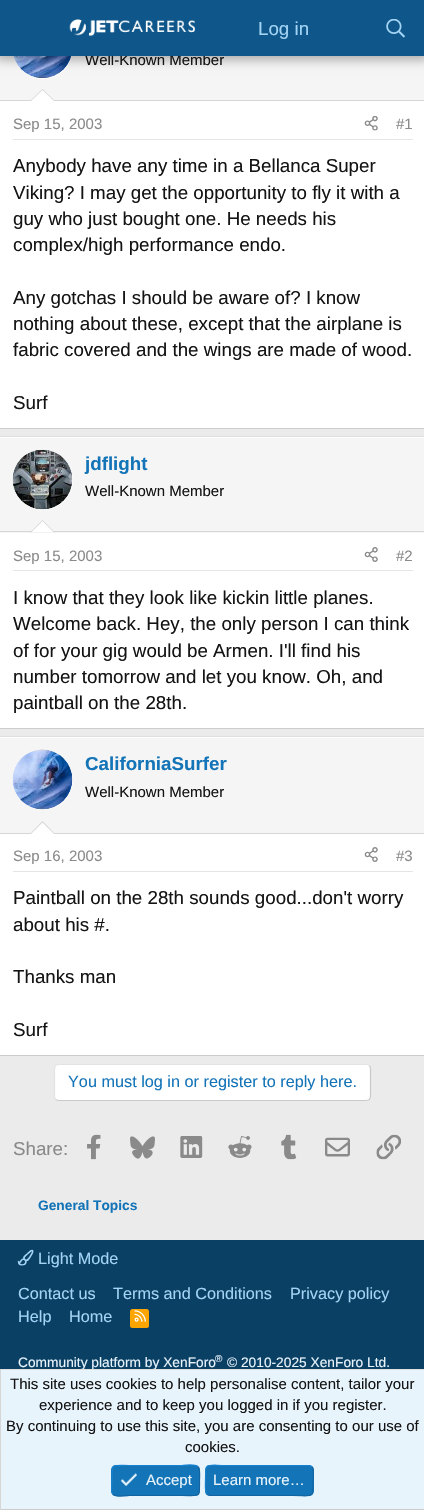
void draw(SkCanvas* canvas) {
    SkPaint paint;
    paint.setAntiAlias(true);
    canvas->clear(0xFFEBEBEB);
    paint.setColor(0xFFF5F5F5);
    canvas->drawRect(SkRect::MakeXYWH(0, 56, 424, 44), paint);
    paint.setColor(0xFFFFFFFF);
    canvas->drawCircle(43, 49, 30, paint);
    canvas->drawImageRect(SkImages::DeferredFromEncodedData(SkData::MakeFromFileName("img3.png")), SkRect::MakeXYWH(13, 56, 59, 22), SkSamplingOptions());
    paint.setColor(0x4D000000);
    paint.setMaskFilter(SkMaskFilter::MakeBlur(kNormal_SkBlurStyle, 5));
    canvas->drawRect(SkRect::MakeXYWH(-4, -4, 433, 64), paint);
    paint.setMaskFilter(nullptr);
    SkFont font1(fontMgr->matchFamilyStyle("Liberation Sans", SkFontStyle::Normal()), 15);
    font1.setSubpixel(true);
    paint.setColor(0xFF141414);
    canvas->drawString("Well-Known Member", 85, 65, font1, paint);
    paint.setColor(0xFF0F578A);
    canvas->drawRect(SkRect::MakeXYWH(0, 0, 424, 56), paint);
    canvas->drawImageRect(SkImages::DeferredFromEncodedData(SkData::MakeFromFileName("img1.png")), SkRect::MakeXYWH(69, 19, 126, 18), SkSamplingOptions());
    SkFont font2(fontMgr->matchFamilyStyle("Liberation Sans", SkFontStyle::Normal()), 18.75f);
    font2.setSubpixel(true);
    paint.setColor(0xFFA3D4F5);
    canvas->drawString("Log in", 258, 35, font2, paint);
    canvas->drawImageRect(SkImages::DeferredFromEncodedData(SkData::MakeFromFileName("img2.png")), SkRect::MakeXYWH(386, 19, 19, 19), SkSamplingOptions());
    paint.setColor(0xFFFFFFFF);
    canvas->drawRect(SkRect::MakeXYWH(0, 101, 424, 327), paint);
    paint.setColor(0xFFCCCCCC);
    canvas->drawRect(SkRect::MakeXYWH(0, 428, 424, 1), paint);
    paint.setColor(0xFFD6D6D6);
    canvas->drawRect(SkRect::MakeXYWH(0, 100, 424, 1), paint);
    canvas->drawPath(SkPathBuilder().moveTo(55, 101).lineTo(30, 101).lineTo(42.5f, 89).close().detach(), paint);
    paint.setColor(0xFFFFFFFF);
    canvas->drawPath(SkPathBuilder().moveTo(54, 101).lineTo(31, 101).lineTo(42.5f, 90).close().detach(), paint);
    paint.setColor(0xFFE5E5E5);
    canvas->drawRect(SkRect::MakeXYWH(13, 139, 400, 1), paint);
    paint.setColor(0xFF8A8A8A);
    canvas->drawString("Sep 15, 2003", 13, 129, font1, paint);
    canvas->drawImageRect(SkImages::DeferredFromEncodedData(SkData::MakeFromFileName("img4.png")), SkRect::MakeXYWH(364, 116, 14, 15), SkSamplingOptions());
    canvas->drawString("#1", 396, 129, font1, paint);
    paint.setColor(0xFF141414);
    canvas->drawString("Anybody have any time in a Bellanca Super", 13, 172, font2, paint);
    canvas->drawString("Viking? I may get the opportunity to fly it with a", 13, 199, font2, paint);
    canvas->drawString("guy who just bought one. He needs his", 13, 225, font2, paint);
    canvas->drawString("complex/high performance endo.", 13, 251, font2, paint);
    canvas->drawString("Any gotchas I should be aware of? I know", 13, 304, font2, paint);
    canvas->drawString("nothing about these, except that the airplane is", 13, 330, font2, paint);
    canvas->drawString("fabric covered and the wings are made of wood.", 13, 356, font2, paint);
    canvas->drawString("Surf", 13, 409, font2, paint);
    paint.setColor(0xFFFFFFFF);
    canvas->drawRect(SkRect::MakeXYWH(0, 437, 424, 291), paint);
    paint.setColor(0xFFE0E0E0);
    canvas->drawRect(SkRect::MakeXYWH(0, 436, 424, 1), paint);
    paint.setColor(0xFFCCCCCC);
    canvas->drawRect(SkRect::MakeXYWH(0, 728, 424, 1), paint);
    paint.setColor(0xFFF5F5F5);
    canvas->drawRect(SkRect::MakeXYWH(0, 438, 424, 95), paint);
    paint.setColor(0xFFD6D6D6);
    canvas->drawRect(SkRect::MakeXYWH(0, 531, 424, 1), paint);
    paint.setColor(0xFFFFFFFF);
    canvas->drawCircle(43, 480, 30, paint);
    canvas->drawImageRect(SkImages::DeferredFromEncodedData(SkData::MakeFromFileName("img5.png")), SkRect::MakeXYWH(12, 449, 61, 61), SkSamplingOptions());
    SkFont font3(fontMgr->matchFamilyStyle("Liberation Sans", SkFontStyle::Bold()), 18.75f);
    font3.setSubpixel(true);
    paint.setColor(0xFF1474B8);
    canvas->drawString("jdflight", 85, 470, font3, paint);
    paint.setColor(0xFF141414);
    canvas->drawString("Well-Known Member", 85, 496, font1, paint);
    paint.setColor(0xFFD6D6D6);
    canvas->drawPath(SkPathBuilder().moveTo(55, 532.5f).lineTo(30, 532.5f).lineTo(42.5f, 520).close().detach(), paint);
    paint.setColor(0xFFFFFFFF);
    canvas->drawPath(SkPathBuilder().moveTo(54, 532.5f).lineTo(31, 532.5f).lineTo(42.5f, 521).close().detach(), paint);
    paint.setColor(0xFFE5E5E5);
    canvas->drawRect(SkRect::MakeXYWH(13, 570, 400, 1), paint);
    paint.setColor(0xFF8A8A8A);
    canvas->drawString("Sep 15, 2003", 13, 561, font1, paint);
    canvas->drawImageRect(SkImages::DeferredFromEncodedData(SkData::MakeFromFileName("img6.png")), SkRect::MakeXYWH(364, 547, 14, 15), SkSamplingOptions());
    canvas->drawString("#2", 396, 561, font1, paint);
    paint.setColor(0xFF141414);
    canvas->drawString("I know that they look like kickin little planes.", 13, 604, font2, paint);
    canvas->drawString("Welcome back. Hey, the only person I can think", 13, 630, font2, paint);
    canvas->drawString("of for your gig would be Armen. I'll find his", 13, 657, font2, paint);
    canvas->drawString("number tomorrow and let you know. Oh, and", 13, 683, font2, paint);
    canvas->drawString("paintball on the 28th.", 13, 709, font2, paint);
    paint.setColor(0xFFFFFFFF);
    canvas->drawRect(SkRect::MakeXYWH(0, 737, 424, 318), paint);
    paint.setColor(0xFFE0E0E0);
    canvas->drawRect(SkRect::MakeXYWH(0, 736, 424, 1), paint);
    paint.setColor(0xFFCCCCCC);
    canvas->drawRect(SkRect::MakeXYWH(0, 1055, 424, 1), paint);
    paint.setColor(0xFFF5F5F5);
    canvas->drawRect(SkRect::MakeXYWH(0, 738, 424, 95), paint);
    paint.setColor(0xFFD6D6D6);
    canvas->drawRect(SkRect::MakeXYWH(0, 833, 424, 1), paint);
    paint.setColor(0xFFFFFFFF);
    canvas->drawCircle(43, 780, 30, paint);
    canvas->drawImageRect(SkImages::DeferredFromEncodedData(SkData::MakeFromFileName("img7.png")), SkRect::MakeXYWH(12, 749, 61, 61), SkSamplingOptions());
    paint.setColor(0xFF1474B8);
    canvas->drawString("CaliforniaSurfer", 85, 770, font3, paint);
    paint.setColor(0xFF141414);
    canvas->drawString("Well-Known Member", 85, 797, font1, paint);
    paint.setColor(0xFFD6D6D6);
    canvas->drawPath(SkPathBuilder().moveTo(55, 834).lineTo(30, 834).lineTo(42.5f, 821).close().detach(), paint);
    paint.setColor(0xFFFFFFFF);
    canvas->drawPath(SkPathBuilder().moveTo(54, 834).lineTo(31, 834).lineTo(42.5f, 822.5f).close().detach(), paint);
    paint.setColor(0xFFE5E5E5);
    canvas->drawRect(SkRect::MakeXYWH(13, 871, 400, 1), paint);
    paint.setColor(0xFF8A8A8A);
    canvas->drawString("Sep 16, 2003", 13, 861, font1, paint);
    canvas->drawImageRect(SkImages::DeferredFromEncodedData(SkData::MakeFromFileName("img8.png")), SkRect::MakeXYWH(364, 847, 14, 15), SkSamplingOptions());
    canvas->drawString("#3", 396, 861, font1, paint);
    paint.setColor(0xFF141414);
    canvas->drawString("Paintball on the 28th sounds good...don't worry", 13, 904, font2, paint);
    canvas->drawString("about his #.", 13, 931, font2, paint);
    canvas->drawString("Thanks man", 13, 983, font2, paint);
    canvas->drawString("Surf", 13, 1036, font2, paint);
    paint.setColor(0xFFFFFFFF);
    canvas->drawRoundRect(SkRect::MakeXYWH(54, 1064, 317, 37), 5, 5, paint);
    paint.setStyle(SkPaint::kStroke_Style);
    paint.setStrokeWidth(1.2f);
    paint.setColor(0xFFC9C9C9);
    canvas->drawPath(SkPathBuilder().moveTo(369.5f, 1065.5f).cubicTo(370, 1066.5f, 370.5f, 1067.5f, 370.5f, 1069).lineTo(370.5f, 1096).cubicTo(370.5f, 1097.5f, 370, 1098.5f, 369.5f, 1099.5f).cubicTo(368.5f, 1100, 367.5f, 1100.5f, 366, 1100.5f).lineTo(59, 1100.5f).cubicTo(57.5f, 1100.5f, 56.5f, 1100, 55.5f, 1099.5f).detach(), paint);
    paint.setColor(0xFFE3E3E3);
    canvas->drawPath(SkPathBuilder().moveTo(55.5f, 1099.5f).cubicTo(55, 1098.5f, 54.5f, 1097.5f, 54.5f, 1096).lineTo(54.5f, 1069).cubicTo(54.5f, 1067.5f, 55, 1066.5f, 55.5f, 1065.5f).cubicTo(56.5f, 1065, 57.5f, 1064.5f, 59, 1064.5f).lineTo(366, 1064.5f).cubicTo(367.5f, 1064.5f, 368.5f, 1065, 369.5f, 1065.5f).detach(), paint);
    SkFont font4(fontMgr->matchFamilyStyle("Liberation Sans", SkFontStyle::Normal()), 16.25f);
    font4.setSubpixel(true);
    paint.setStyle(SkPaint::kFill_Style);
    paint.setColor(0xFF1474B8);
    canvas->drawString("You must log in or register to reply here.", 68, 1087, font4, paint);
    paint.setColor(0xFF8A8A8A);
    canvas->drawString("Share:", 13, 1155, font2, paint);
    canvas->drawImageRect(SkImages::DeferredFromEncodedData(SkData::MakeFromFileName("img9.png")), SkRect::MakeXYWH(87, 1134, 14, 26), SkSamplingOptions());
    canvas->drawImageRect(SkImages::DeferredFromEncodedData(SkData::MakeFromFileName("img10.png")), SkRect::MakeXYWH(130, 1136, 25, 23), SkSamplingOptions());
    canvas->drawImageRect(SkImages::DeferredFromEncodedData(SkData::MakeFromFileName("img11.png")), SkRect::MakeXYWH(180, 1136, 23, 22), SkSamplingOptions());
    canvas->drawImageRect(SkImages::DeferredFromEncodedData(SkData::MakeFromFileName("img12.png")), SkRect::MakeXYWH(228, 1136, 24, 22), SkSamplingOptions());
    canvas->drawImageRect(SkImages::DeferredFromEncodedData(SkData::MakeFromFileName("img13.png")), SkRect::MakeXYWH(281, 1134, 16, 26), SkSamplingOptions());
    canvas->drawImageRect(SkImages::DeferredFromEncodedData(SkData::MakeFromFileName("img14.png")), SkRect::MakeXYWH(325, 1137, 25, 20), SkSamplingOptions());
    canvas->drawImageRect(SkImages::DeferredFromEncodedData(SkData::MakeFromFileName("img15.png")), SkRect::MakeXYWH(376, 1134, 25, 26), SkSamplingOptions());
    SkFont font5(fontMgr->matchFamilyStyle("Liberation Sans", SkFontStyle::Bold()), 13.75f);
    font5.setSubpixel(true);
    paint.setColor(0xFF1474B8);
    canvas->drawString("General Topics", 38, 1210, font5, paint);
    paint.setColor(0xFF0B4065);
    canvas->drawRect(SkRect::MakeXYWH(0, 1240, 424, 129), paint);
    canvas->drawImageRect(SkImages::DeferredFromEncodedData(SkData::MakeFromFileName("img16.png")), SkRect::MakeXYWH(17, 1249, 17, 17), SkSamplingOptions());
    paint.setColor(0xFFA3D4F5);
    canvas->drawString("Light Mode", 38, 1264, font4, paint);
    canvas->drawString("Contact us", 18, 1299, font4, paint);
    canvas->drawString("Terms and Conditions", 113, 1299, font4, paint);
    canvas->drawString("Privacy policy", 290, 1299, font4, paint);
    canvas->drawString("Help", 18, 1322, font4, paint);
    canvas->drawString("Home", 69, 1322, font4, paint);
    paint.setColor(0xFFFFA500);
    canvas->drawRoundRect(SkRect::MakeXYWH(130, 1309, 19, 19), 2.5f, 2.5f, paint);
    canvas->drawImageRect(SkImages::DeferredFromEncodedData(SkData::MakeFromFileName("img17.png")), SkRect::MakeXYWH(134, 1310, 12, 12), SkSamplingOptions());
    SkFont font6(fontMgr->matchFamilyStyle("Liberation Sans", SkFontStyle::Normal()), 13.75f);
    font6.setSubpixel(true);
    paint.setColor(0xFFE8F4FC);
    canvas->drawString("Community platform by XenForo", 18, 1367, font6, paint);
    SkFont font7(fontMgr->matchFamilyStyle("Liberation Sans", SkFontStyle::Normal()), 10);
    font7.setSubpixel(true);
    canvas->drawString("®", 215, 1362, font7, paint);
    canvas->drawString("© 2010-2025 XenForo Ltd.", 227, 1367, font6, paint);
    canvas->drawRect(SkRect::MakeXYWH(1, 1370, 423, 139), paint);
    paint.setColor(0xFFE0E0E0);
    canvas->drawRect(SkRect::MakeXYWH(0, 1369, 424, 1), paint);
    paint.setColor(0xFFCCCCCC);
    canvas->drawRect(SkRect::MakeXYWH(0, 1509, 424, 1), paint);
    paint.setColor(0xFFD6D6D6);
    canvas->drawRect(SkRect::MakeXYWH(0, 1369, 1, 141), paint);
    paint.setColor(0xFF141414);
    canvas->drawString("This site uses cookies to help personalise content, tailor your", 10, 1389, font1, paint);
    canvas->drawString("experience and to keep you logged in if you register.", 39, 1410, font1, paint);
    canvas->drawString("By continuing to use this site, you are consenting to our use of", 6, 1431, font1, paint);
    canvas->drawString("cookies.", 185, 1452, font1, paint);
    paint.setColor(0xFF1474B8);
    canvas->drawRoundRect(SkRect::MakeXYWH(111, 1465, 89, 31), 5, 5, paint);
    paint.setStyle(SkPaint::kStroke_Style);
    paint.setColor(0xFF1265A1);
    canvas->drawPath(SkPathBuilder().moveTo(198, 1467).cubicTo(200.5f, 1469.5f, 199.5f, 1477.5f, 199.5f, 1480.5f).cubicTo(199.5f, 1498.5f, 201, 1495.5f, 182, 1495.5f).lineTo(129.5f, 1495.5f).cubicTo(128, 1495.5f, 116.5f, 1497.5f, 113, 1494.5f).detach(), paint);
    paint.setColor(0xFF1782CF);
    canvas->drawPath(SkPathBuilder().moveTo(113, 1494.5f).cubicTo(110.5f, 1491.5f, 112, 1484, 112, 1480.5f).cubicTo(112, 1463, 110.5f, 1465.5f, 129.5f, 1465.5f).lineTo(182, 1465.5f).cubicTo(183, 1465.5f, 195, 1463.5f, 198, 1467).detach(), paint);
    canvas->drawImageRect(SkImages::DeferredFromEncodedData(SkData::MakeFromFileName("img18.png")), SkRect::MakeXYWH(121, 1472, 16, 15), SkSamplingOptions());
    paint.setStyle(SkPaint::kFill_Style);
    paint.setColor(0xFFE8F4FC);
    canvas->drawString("Accept", 146, 1485, font1, paint);
    paint.setColor(0xFF1474B8);
    canvas->drawRoundRect(SkRect::MakeXYWH(205, 1465, 109, 31), 5, 5, paint);
    paint.setStyle(SkPaint::kStroke_Style);
    paint.setColor(0xFF1265A1);
    canvas->drawPath(SkPathBuilder().moveTo(312, 1467).cubicTo(314.5f, 1469.5f, 313, 1477.5f, 313, 1480.5f).cubicTo(313, 1499.5f, 314, 1495.5f, 292.5f, 1495.5f).lineTo(210, 1495.5f).lineTo(207, 1494.5f).detach(), paint);
    paint.setColor(0xFF1782CF);
    canvas->drawPath(SkPathBuilder().moveTo(207, 1494.5f).cubicTo(204.5f, 1491.5f, 205.5f, 1484, 205.5f, 1480.5f).cubicTo(205.5f, 1461.5f, 205, 1465.5f, 226.5f, 1465.5f).lineTo(309, 1465.5f).lineTo(312, 1467).detach(), paint);
    paint.setStyle(SkPaint::kFill_Style);
    paint.setColor(0xFFE8F4FC);
    canvas->drawString("Learn more…", 213, 1485, font1, paint);
}
